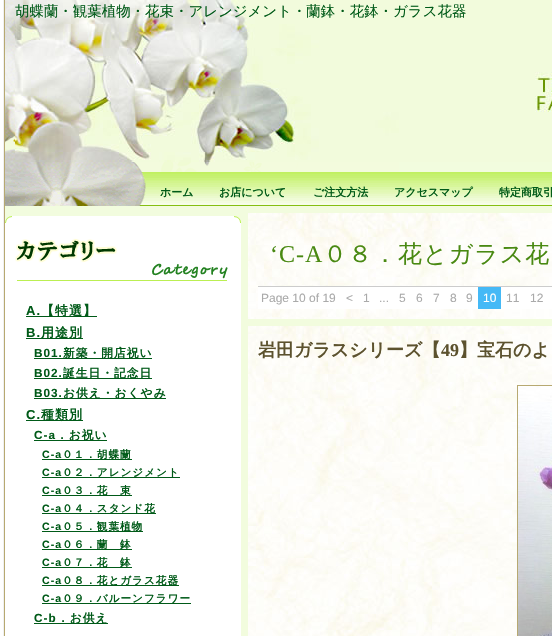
void draw(SkCanvas* canvas) {
    SkPaint paint;
    paint.setAntiAlias(true);
    auto spacedText = [&](const char* s, float x, float y, const SkFont& font, const SkPaint& ink, float letter, float word) {
        std::vector<SkGlyphID> glyphs(font.countText(s, strlen(s), SkTextEncoding::kUTF8));
        std::vector<float> xs(glyphs.size());
        font.textToGlyphs(s, strlen(s), SkTextEncoding::kUTF8, glyphs);
        font.getXPos(glyphs, xs, x);
        float extra = 0;
        for (size_t i = 0; i < glyphs.size(); i++) {
            xs[i] += extra;
            extra += letter + word * (glyphs[i] == font.unicharToGlyph(' '));
        }
        canvas->drawTextBlob(SkTextBlob::MakeFromPosHGlyphs(glyphs, xs, y, font), 0, 0, ink);
    };
    canvas->clear(0xFFFFFFFF);
    canvas->drawImageRect(SkImages::DeferredFromEncodedData(SkData::MakeFromFileName("img1.png")), SkRect::MakeXYWH(3, 0, 24, 636), SkSamplingOptions());
    paint.setColor(0xFFF2FCDE);
    canvas->drawRect(SkRect::MakeXYWH(27, 162, 525, 474), paint);
    canvas->drawImageRect(SkImages::DeferredFromEncodedData(SkData::MakeFromFileName("img2.png")), SkRect::MakeXYWH(5, 0, 394, 172), SkSamplingOptions());
    canvas->drawImageRect(SkImages::DeferredFromEncodedData(SkData::MakeFromFileName("img3.png")), SkRect::MakeXYWH(15, 0, 537, 162), SkSamplingOptions());
    SkFont font1(fontMgr->matchFamilyStyle("WenQuanYi Zen Hei", SkFontStyle(500, SkFontStyle::kNormal_Width, SkFontStyle::kUpright_Slant)), 14.45f);
    font1.setSubpixel(true);
    paint.setColor(0xFF005A18);
    canvas->drawString("胡蝶蘭・観葉植物・花束・アレンジメント・蘭鉢・花鉢・ガラス花器", 15, 16, font1, paint);
    canvas->drawImageRect(SkImages::DeferredFromEncodedData(SkData::MakeFromFileName("img4.png")), SkRect::MakeXYWH(5, 172, 547, 34), SkSamplingOptions());
    SkFont font2(fontMgr->matchFamilyStyle("WenQuanYi Zen Hei", SkFontStyle::Bold()), 11);
    font2.setSubpixel(true);
    canvas->drawString("ホーム", 160, 196, font2, paint);
    canvas->drawString("お店について", 219, 196, font2, paint);
    canvas->drawString("ご注文方法", 313, 196, font2, paint);
    canvas->drawString("アクセスマップ", 394, 196, font2, paint);
    canvas->drawString("特定商取引", 499, 196, font2, paint);
    canvas->drawImageRect(SkImages::DeferredFromEncodedData(SkData::MakeFromFileName("img5.png")), SkRect::MakeXYWH(5, 216, 7, 7), SkSamplingOptions());
    paint.setColor(0xFFFFFFFF);
    canvas->drawRect(SkRect::MakeXYWH(12, 216, 222, 7), paint);
    canvas->drawImageRect(SkImages::DeferredFromEncodedData(SkData::MakeFromFileName("img6.png")), SkRect::MakeXYWH(234, 216, 7, 7), SkSamplingOptions());
    canvas->drawRect(SkRect::MakeXYWH(5, 223, 7, 413), paint);
    canvas->drawRect(SkRect::MakeXYWH(12, 223, 229, 413), paint);
    canvas->drawImageRect(SkImages::DeferredFromEncodedData(SkData::MakeFromFileName("img7.png")), SkRect::MakeXYWH(15, 238, 213, 43), SkSamplingOptions());
    SkFont font3(fontMgr->matchFamilyStyle("Liberation Sans", SkFontStyle::Bold()), 13);
    font3.setSubpixel(true);
    paint.setColor(0xFF005A18);
    spacedText("A.", 26, 315, font3, paint, 1, 0);
    canvas->drawRect(SkRect::MakeXYWH(26, 316, 71, 1), paint);
    SkFont font4(fontMgr->matchFamilyStyle("WenQuanYi Zen Hei", SkFontStyle::Bold()), 13);
    font4.setSubpixel(true);
    spacedText("【特選】", 41, 315, font4, paint, 1, 0);
    spacedText("B.", 26, 337, font3, paint, 1, 0);
    canvas->drawRect(SkRect::MakeXYWH(26, 338, 57, 1), paint);
    spacedText("用途別", 41, 337, font4, paint, 1, 0);
    SkFont font5(fontMgr->matchFamilyStyle("Liberation Sans", SkFontStyle::Bold()), 11.75f);
    font5.setSubpixel(true);
    spacedText("B01.", 34, 357, font5, paint, 1, 0);
    canvas->drawRect(SkRect::MakeXYWH(34, 358, 118, 1), paint);
    SkFont font6(fontMgr->matchFamilyStyle("WenQuanYi Zen Hei", SkFontStyle::Bold()), 11.75f);
    font6.setSubpixel(true);
    spacedText("新築・開店祝い", 63, 357, font6, paint, 1, 0);
    spacedText("B02.", 34, 377, font5, paint, 1, 0);
    canvas->drawRect(SkRect::MakeXYWH(34, 378, 118, 1), paint);
    spacedText("誕生日・記念日", 63, 377, font6, paint, 1, 0);
    spacedText("B03.", 34, 397, font5, paint, 1, 0);
    canvas->drawRect(SkRect::MakeXYWH(34, 398, 132, 1), paint);
    spacedText("お供え・おくやみ", 63, 397, font6, paint, 1, 0);
    spacedText("C.", 26, 419, font3, paint, 1, 0);
    canvas->drawRect(SkRect::MakeXYWH(26, 420, 57, 1), paint);
    spacedText("種類別", 41, 419, font4, paint, 1, 0);
    spacedText("C-a", 34, 439, font5, paint, 1, 0);
    canvas->drawRect(SkRect::MakeXYWH(34, 440, 73, 1), paint);
    spacedText("．お祝い", 56, 439, font6, paint, 1, 0);
    SkFont font7(fontMgr->matchFamilyStyle("Liberation Sans", SkFontStyle::Bold()), 10.6f);
    font7.setSubpixel(true);
    spacedText("C-a", 42, 458, font7, paint, 1, 0);
    canvas->drawRect(SkRect::MakeXYWH(42, 459, 90, 1), paint);
    SkFont font8(fontMgr->matchFamilyStyle("WenQuanYi Zen Hei", SkFontStyle::Bold()), 10.6f);
    font8.setSubpixel(true);
    spacedText("０１．胡蝶蘭", 62, 458, font8, paint, 1, 0);
    spacedText("C-a", 42, 476, font7, paint, 1, 0);
    canvas->drawRect(SkRect::MakeXYWH(42, 477, 138, 1), paint);
    spacedText("０２．アレンジメント", 62, 476, font8, paint, 1, 0);
    spacedText("C-a", 42, 494, font7, paint, 1, 0);
    canvas->drawRect(SkRect::MakeXYWH(42, 495, 90, 1), paint);
    spacedText("０３．花　束", 62, 494, font8, paint, 1, 0);
    spacedText("C-a", 42, 512, font7, paint, 1, 0);
    canvas->drawRect(SkRect::MakeXYWH(42, 513, 114, 1), paint);
    spacedText("０４．スタンド花", 62, 512, font8, paint, 1, 0);
    spacedText("C-a", 42, 530, font7, paint, 1, 0);
    canvas->drawRect(SkRect::MakeXYWH(42, 531, 101, 1), paint);
    spacedText("０５．観葉植物", 62, 530, font8, paint, 1, 0);
    spacedText("C-a", 42, 548, font7, paint, 1, 0);
    canvas->drawRect(SkRect::MakeXYWH(42, 549, 90, 1), paint);
    spacedText("０６．蘭　鉢", 62, 548, font8, paint, 1, 0);
    spacedText("C-a", 42, 566, font7, paint, 1, 0);
    canvas->drawRect(SkRect::MakeXYWH(42, 567, 90, 1), paint);
    spacedText("０７．花　鉢", 62, 566, font8, paint, 1, 0);
    spacedText("C-a", 42, 584, font7, paint, 1, 0);
    canvas->drawRect(SkRect::MakeXYWH(42, 585, 137, 1), paint);
    spacedText("０８．花とガラス花器", 62, 584, font8, paint, 1, 0);
    spacedText("C-a", 42, 602, font7, paint, 1, 0);
    canvas->drawRect(SkRect::MakeXYWH(42, 603, 149, 1), paint);
    spacedText("０９．バルーンフラワー", 62, 602, font8, paint, 1, 0);
    spacedText("C-b", 34, 622, font5, paint, 1, 0);
    canvas->drawRect(SkRect::MakeXYWH(34, 623, 74, 1), paint);
    spacedText("．お供え", 57, 622, font6, paint, 1, 0);
    canvas->drawImageRect(SkImages::DeferredFromEncodedData(SkData::MakeFromFileName("img8.png")), SkRect::MakeXYWH(248, 213, 304, 106), SkSamplingOptions());
    SkFont font9(fontMgr->matchFamilyStyle("Liberation Serif", SkFontStyle::Normal()), 24);
    font9.setSubpixel(true);
    paint.setColor(0xFF498912);
    spacedText("‘C-A", 270, 262, font9, paint, 1, 0);
    SkFont font10(fontMgr->matchFamilyStyle("WenQuanYi Zen Hei", SkFontStyle(500, SkFontStyle::kNormal_Width, SkFontStyle::kUpright_Slant)), 24);
    font10.setSubpixel(true);
    spacedText("０８．花とガラス花", 323, 262, font10, paint, 1, 0);
    paint.setColor(0xFFFFFFFF);
    canvas->drawRect(SkRect::MakeXYWH(258, 287, 294, 22), paint);
    paint.setColor(0xFFCCCCCC);
    canvas->drawRect(SkRect::MakeXYWH(258, 286, 294, 1), paint);
    SkFont font11(fontMgr->matchFamilyStyle("Liberation Sans", SkFontStyle::Normal()), 12);
    font11.setSubpixel(true);
    paint.setColor(0xFFAAAAAA);
    canvas->drawString("Page 10 of 19", 261, 302, font11, paint);
    canvas->drawString("<", 346, 302, font11, paint);
    canvas->drawString("1", 363, 302, font11, paint);
    canvas->drawString("...", 379, 302, font11, paint);
    canvas->drawString("5", 399, 302, font11, paint);
    canvas->drawString("6", 416, 302, font11, paint);
    canvas->drawString("7", 433, 302, font11, paint);
    canvas->drawString("8", 450, 302, font11, paint);
    canvas->drawString("9", 466, 302, font11, paint);
    paint.setColor(0xFF45B9F6);
    canvas->drawRect(SkRect::MakeXYWH(478, 287, 23, 22), paint);
    paint.setColor(0xFFFFFFFF);
    canvas->drawString("10", 483, 302, font11, paint);
    paint.setColor(0xFFAAAAAA);
    canvas->drawString("11", 506, 302, font11, paint);
    canvas->drawString("12", 530, 302, font11, paint);
    canvas->drawImageRect(SkImages::DeferredFromEncodedData(SkData::MakeFromFileName("img9.png")), SkRect::MakeXYWH(248, 326, 304, 310), SkSamplingOptions());
    SkFont font12(fontMgr->matchFamilyStyle("WenQuanYi Zen Hei", SkFontStyle::Bold()), 18);
    font12.setSubpixel(true);
    paint.setColor(0xFF5C522E);
    canvas->drawString("岩田ガラスシリーズ【", 258, 356, font12, paint);
    SkFont font13(fontMgr->matchFamilyStyle("Liberation Serif", SkFontStyle::Bold()), 18);
    font13.setSubpixel(true);
    canvas->drawString("49", 441, 356, font13, paint);
    canvas->drawString("】宝石のよ", 459, 356, font12, paint);
    paint.setStyle(SkPaint::kStroke_Style);
    paint.setStrokeWidth(1);
    paint.setColor(0xFFB7A971);
    canvas->drawRect(SkRect::MakeXYWH(517.5f, 385.5f, 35, 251), paint);
    canvas->drawImageRect(SkImages::DeferredFromEncodedData(SkData::MakeFromFileName("img10.png")), SkRect::MakeXYWH(518, 386, 34, 250), SkSamplingOptions());
}
